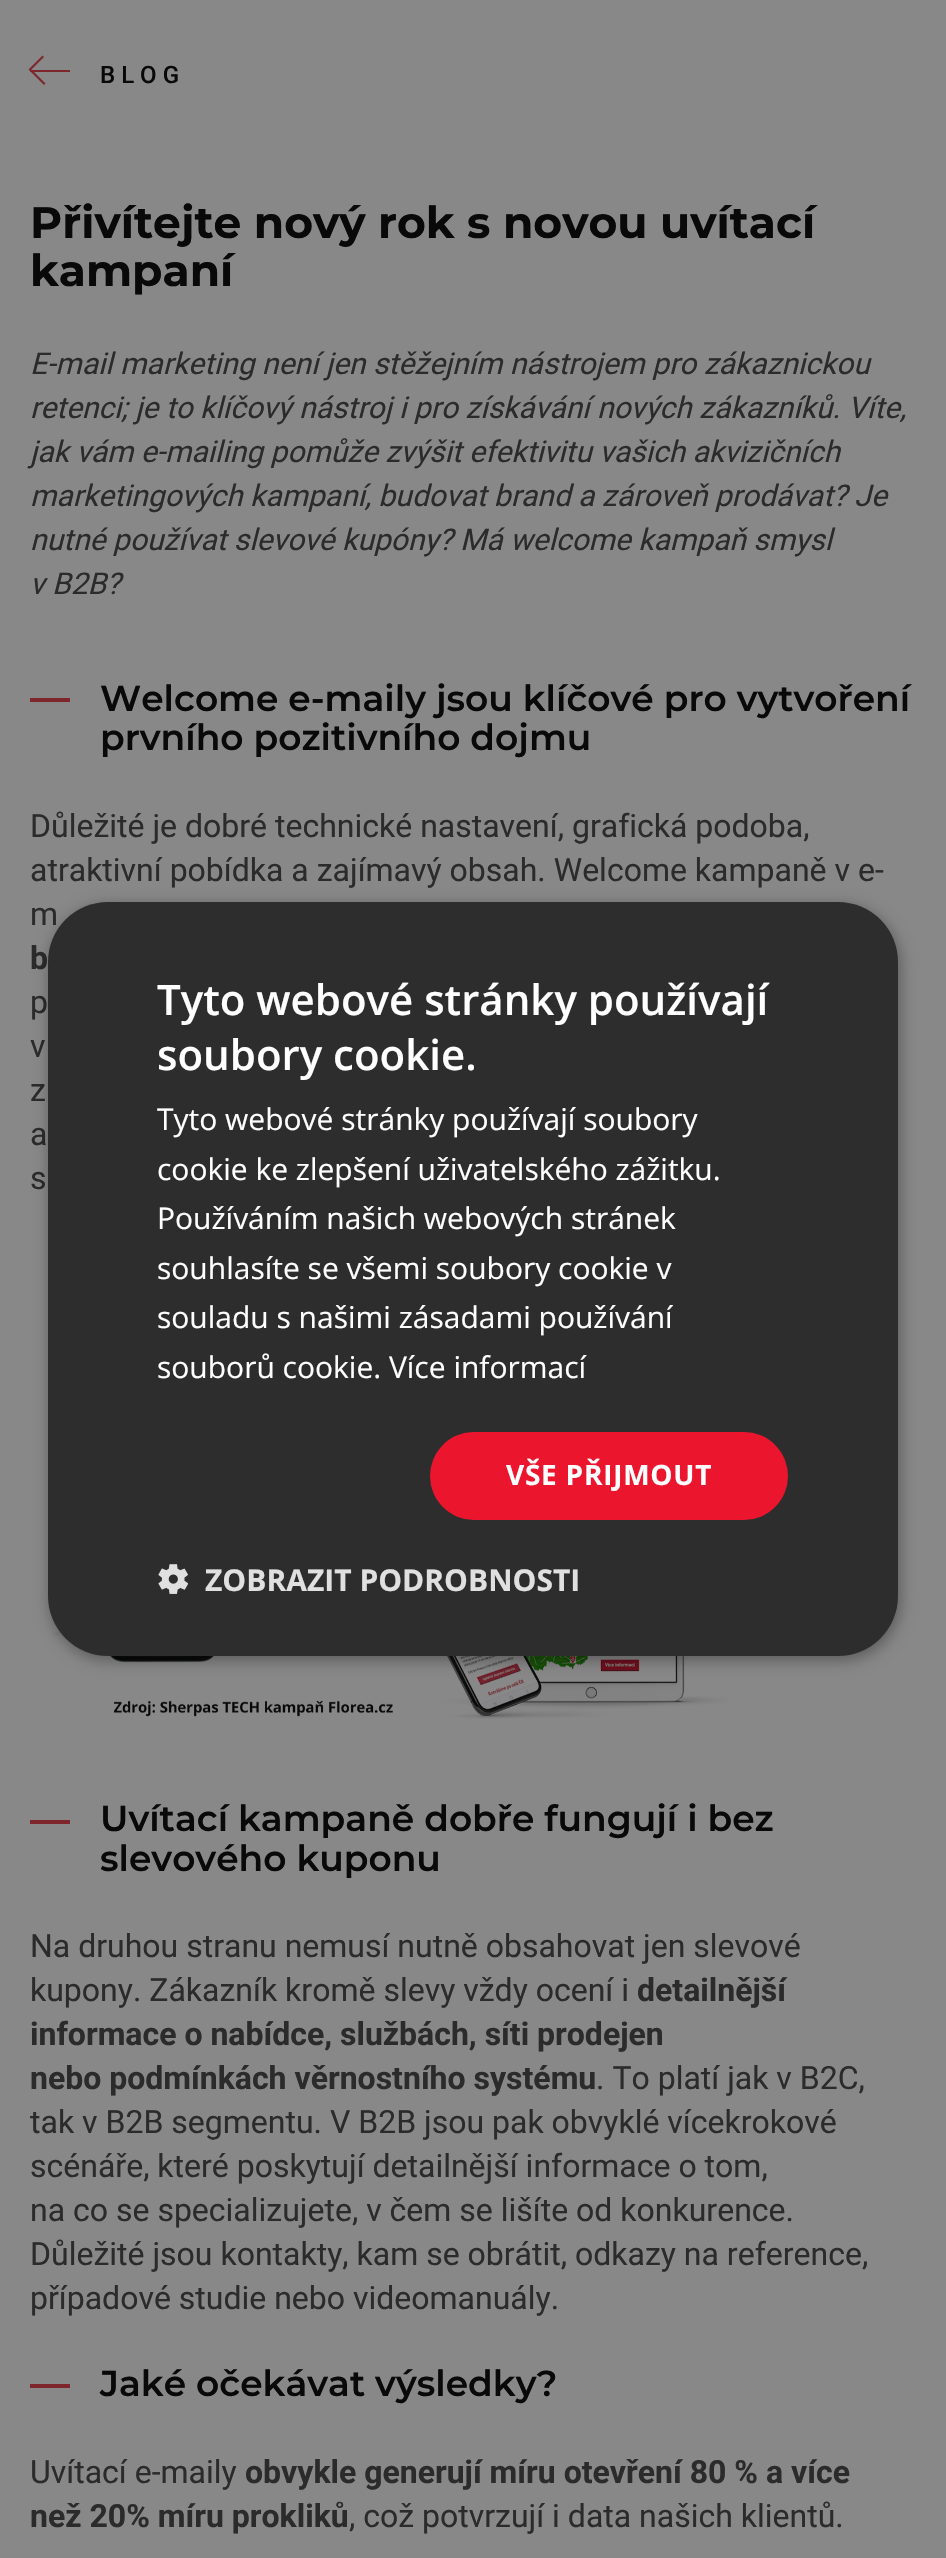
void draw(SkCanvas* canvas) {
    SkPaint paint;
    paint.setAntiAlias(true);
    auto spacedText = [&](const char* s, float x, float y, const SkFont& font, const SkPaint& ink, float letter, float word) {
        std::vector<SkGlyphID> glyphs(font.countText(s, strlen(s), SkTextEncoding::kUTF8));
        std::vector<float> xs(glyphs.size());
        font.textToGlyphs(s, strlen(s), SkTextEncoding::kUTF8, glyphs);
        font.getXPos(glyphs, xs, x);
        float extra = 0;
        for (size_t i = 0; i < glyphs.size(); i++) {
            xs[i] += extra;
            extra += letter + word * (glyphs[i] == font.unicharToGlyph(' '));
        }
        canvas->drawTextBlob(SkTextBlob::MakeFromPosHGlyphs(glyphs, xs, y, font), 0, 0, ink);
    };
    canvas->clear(0xFF888888);
    paint.setColor(0xFF7D272C);
    canvas->drawRect(SkRect::MakeXYWH(30, 70, 40, 2), paint);
    canvas->drawPath(SkPathBuilder().moveTo(44, 85).lineTo(30, 71).lineTo(31.5f, 69.5f).lineTo(45.5f, 83.5f).close().detach(), paint);
    canvas->drawPath(SkPathBuilder().moveTo(44, 57).lineTo(30, 71).lineTo(28.5f, 69.5f).lineTo(42.5f, 55.5f).close().detach(), paint);
    SkFont font1(fontMgr->matchFamilyStyle("Roboto", SkFontStyle(500, SkFontStyle::kNormal_Width, SkFontStyle::kUpright_Slant)), 24);
    font1.setSubpixel(true);
    paint.setColor(0xFF090909);
    spacedText("BLOG", 100, 83, font1, paint, 6, 0);
    SkFont font2(fontMgr->matchFamilyStyle("Montserrat", SkFontStyle::Bold()), 44);
    font2.setSubpixel(true);
    canvas->drawString("Přivítejte nový rok s novou uvítací", 30, 238, font2, paint);
    canvas->drawString("kampaní", 30, 286, font2, paint);
    SkFont font3(fontMgr->matchFamilyStyle("Roboto", SkFontStyle::Italic()), 30);
    font3.setSubpixel(true);
    paint.setColor(0xFF2B2B2B);
    canvas->drawString("E-mail marketing není jen stěžejním nástrojem pro zákaznickou", 30, 374, font3, paint);
    canvas->drawString("retenci; je to klíčový nástroj i pro získávání nových zákazníků. Víte,", 30, 418, font3, paint);
    canvas->drawString("jak vám e-mailing pomůže zvýšit efektivitu vašich akvizičních", 30, 462, font3, paint);
    canvas->drawString("marketingových kampaní, budovat brand a zároveň prodávat? Je", 30, 506, font3, paint);
    canvas->drawString("nutné používat slevové kupóny? Má welcome kampaň smysl", 30, 550, font3, paint);
    canvas->drawString("v B2B?", 30, 594, font3, paint);
    paint.setColor(0xFF7D272C);
    canvas->drawRect(SkRect::MakeXYWH(30, 698, 40, 4), paint);
    SkFont font4(fontMgr->matchFamilyStyle("Montserrat", SkFontStyle(600, SkFontStyle::kNormal_Width, SkFontStyle::kUpright_Slant)), 36);
    font4.setSubpixel(true);
    paint.setColor(0xFF090909);
    canvas->drawString("Welcome e-maily jsou klíčové pro vytvoření", 100, 711, font4, paint);
    canvas->drawString("prvního pozitivního dojmu", 100, 750, font4, paint);
    SkFont font5(fontMgr->matchFamilyStyle("Roboto", SkFontStyle::Normal()), 32);
    font5.setSubpixel(true);
    paint.setColor(0xFF2B2B2B);
    canvas->drawString("Důležité je dobré technické nastavení, grafická podoba,", 30, 837, font5, paint);
    canvas->drawString("atraktivní pobídka a zajímavý obsah. Welcome kampaně v e-", 30, 881, font5, paint);
    canvas->drawString("m", 30, 925, font5, paint);
    SkFont font6(fontMgr->matchFamilyStyle("Roboto", SkFontStyle::Bold()), 32);
    font6.setSubpixel(true);
    canvas->drawString("b", 30, 969, font6, paint);
    canvas->drawString("p", 30, 1013, font5, paint);
    canvas->drawString("v", 30, 1057, font5, paint);
    canvas->drawString("z", 30, 1101, font5, paint);
    canvas->drawString("a", 30, 1145, font5, paint);
    canvas->drawString("s", 30, 1189, font5, paint);
    canvas->drawImageRect(SkImages::DeferredFromEncodedData(SkData::MakeFromFileName("img1.png")), SkRect::MakeXYWH(52, 1631, 676, 88), SkSamplingOptions());
    paint.setColor(0xFF7D272C);
    canvas->drawRect(SkRect::MakeXYWH(30, 1820, 40, 4), paint);
    paint.setColor(0xFF090909);
    canvas->drawString("Uvítací kampaně dobře fungují i bez", 100, 1831, font4, paint);
    canvas->drawString("slevového kuponu", 100, 1871, font4, paint);
    paint.setColor(0xFF2B2B2B);
    canvas->drawString("Na druhou stranu nemusí nutně obsahovat jen slevové", 30, 1957, font5, paint);
    canvas->drawString("kupony. Zákazník kromě slevy vždy ocení i", 30, 2001, font5, paint);
    canvas->drawString("detailnější", 637, 2001, font6, paint);
    canvas->drawString("informace o nabídce, službách, síti prodejen", 30, 2045, font6, paint);
    canvas->drawString("nebo podmínkách věrnostního systému", 30, 2089, font6, paint);
    canvas->drawString(". To platí jak v B2C,", 596, 2089, font5, paint);
    canvas->drawString("tak v B2B segmentu. V B2B jsou pak obvyklé vícekrokové", 30, 2133, font5, paint);
    canvas->drawString("scénáře, které poskytují detailnější informace o tom,", 30, 2177, font5, paint);
    canvas->drawString("na co se specializujete, v čem se lišíte od konkurence.", 30, 2221, font5, paint);
    canvas->drawString("Důležité jsou kontakty, kam se obrátit, odkazy na reference,", 30, 2265, font5, paint);
    canvas->drawString("případové studie nebo videomanuály.", 30, 2309, font5, paint);
    paint.setColor(0xFF7D272C);
    canvas->drawRect(SkRect::MakeXYWH(30, 2384, 40, 4), paint);
    paint.setColor(0xFF090909);
    canvas->drawString("Jaké očekávat výsledky?", 100, 2396, font4, paint);
    paint.setColor(0xFF2B2B2B);
    canvas->drawString("Uvítací e-maily", 30, 2483, font5, paint);
    canvas->drawString("obvykle generují míru otevření 80 % a více", 245, 2483, font6, paint);
    canvas->drawString("než 20% míru prokliků", 30, 2527, font6, paint);
    canvas->drawString(", což potvrzují i data našich klientů.", 349, 2527, font5, paint);
    paint.setColor(0x59000000);
    paint.setMaskFilter(SkMaskFilter::MakeBlur(kNormal_SkBlurStyle, 8));
    canvas->drawRoundRect(SkRect::MakeXYWH(50, 906, 850, 754), 60, 60, paint);
    paint.setMaskFilter(nullptr);
    paint.setColor(0xFF2D2D2D);
    canvas->drawRoundRect(SkRect::MakeXYWH(48, 902, 850, 754), 60, 60, paint);
    SkFont font7(fontMgr->matchFamilyStyle("Open Sans", SkFontStyle(600, SkFontStyle::kNormal_Width, SkFontStyle::kUpright_Slant)), 42);
    font7.setSubpixel(true);
    paint.setColor(0xFFFFFFFF);
    canvas->drawString("Tyto webové stránky používají", 157, 1015, font7, paint);
    canvas->drawString("soubory cookie.", 157, 1070, font7, paint);
    SkFont font8(fontMgr->matchFamilyStyle("Open Sans", SkFontStyle::Normal()), 30);
    font8.setSubpixel(true);
    canvas->drawString("Tyto webové stránky používají soubory", 157, 1130, font8, paint);
    canvas->drawString("cookie ke zlepšení uživatelského zážitku.", 157, 1180, font8, paint);
    canvas->drawString("Používáním našich webových stránek", 157, 1229, font8, paint);
    canvas->drawString("souhlasíte se všemi soubory cookie v", 157, 1279, font8, paint);
    canvas->drawString("souladu s našimi zásadami používání", 157, 1328, font8, paint);
    canvas->drawString("souborů cookie. Více informací", 157, 1378, font8, paint);
    paint.setColor(0xFFEB152E);
    canvas->drawRoundRect(SkRect::MakeXYWH(430, 1432, 358, 88), 44, 44, paint);
    SkFont font9(fontMgr->matchFamilyStyle("Open Sans", SkFontStyle::Bold()), 28);
    font9.setSubpixel(true);
    paint.setColor(0xFFFFFFFF);
    spacedText("VŠE PŘIJMOUT", 506, 1485, font9, paint, 0.75f, 0);
    canvas->drawImageRect(SkImages::DeferredFromEncodedData(SkData::MakeFromFileName("img2.png")), SkRect::MakeXYWH(158, 1564, 30, 30), SkSamplingOptions());
    SkFont font10(fontMgr->matchFamilyStyle("Open Sans", SkFontStyle::Bold()), 30);
    font10.setSubpixel(true);
    paint.setColor(0xFFE0E0E0);
    canvas->drawString("ZOBRAZIT PODROBNOSTI", 205, 1591, font10, paint);
}
